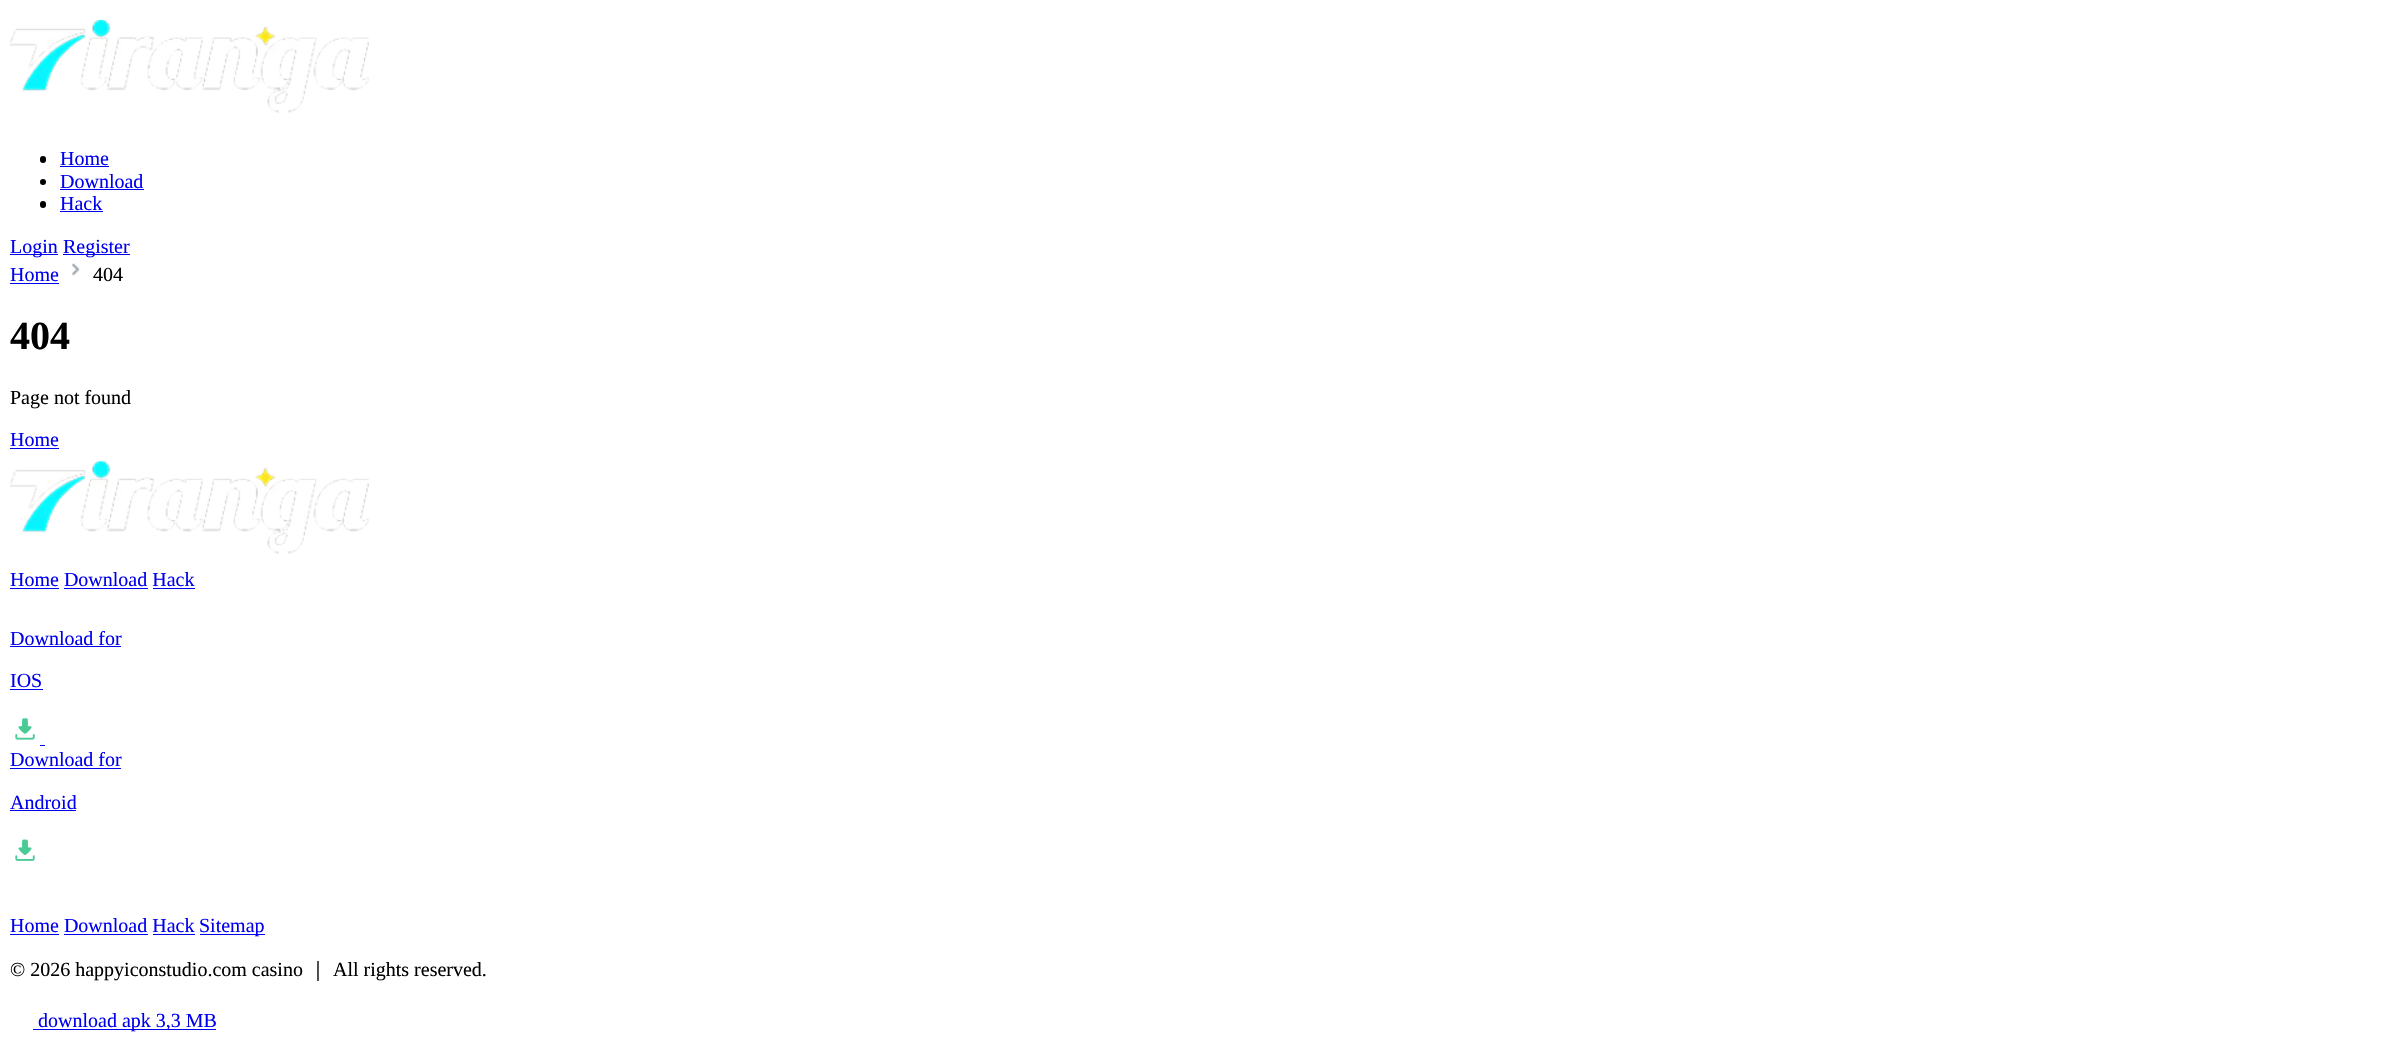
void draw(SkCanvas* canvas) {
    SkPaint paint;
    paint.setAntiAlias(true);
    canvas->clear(0xFFFFFFFF);
    canvas->drawImageRect(SkImages::DeferredFromEncodedData(SkData::MakeFromFileName("img1.png")), SkRect::MakeXYWH(10, 19, 359, 94), SkSamplingOptions());
    paint.setColor(0xFF000000);
    canvas->drawRoundRect(SkRect::MakeXYWH(40, 156, 6, 7), 3, 3, paint);
    SkFont font1(fontMgr->matchFamilyStyle("Liberation Serif", SkFontStyle::Normal()), 20);
    font1.setSubpixel(true);
    paint.setColor(0xFF0000EE);
    canvas->drawString("Home", 60, 165, font1, paint);
    canvas->drawRect(SkRect::MakeXYWH(60, 166, 49, 1), paint);
    paint.setColor(0xFF000000);
    canvas->drawCircle(43, 182, 3, paint);
    paint.setColor(0xFF0000EE);
    canvas->drawString("Download", 60, 188, font1, paint);
    canvas->drawRect(SkRect::MakeXYWH(60, 189, 84, 1), paint);
    paint.setColor(0xFF000000);
    canvas->drawRoundRect(SkRect::MakeXYWH(40, 201, 6, 7), 3, 3, paint);
    paint.setColor(0xFF0000EE);
    canvas->drawString("Hack", 60, 210, font1, paint);
    canvas->drawRect(SkRect::MakeXYWH(60, 211, 43, 1), paint);
    canvas->drawRect(SkRect::MakeXYWH(10, 254, 48, 1), paint);
    canvas->drawString("Login", 10, 253, font1, paint);
    canvas->drawRect(SkRect::MakeXYWH(63, 254, 67, 1), paint);
    canvas->drawString("Register", 63, 253, font1, paint);
    canvas->drawString("Home", 10, 281, font1, paint);
    canvas->drawRect(SkRect::MakeXYWH(10, 283, 49, 1), paint);
    canvas->drawImageRect(SkImages::DeferredFromEncodedData(SkData::MakeFromFileName("img2.png")), SkRect::MakeXYWH(71, 263, 9, 13), SkSamplingOptions());
    paint.setColor(0xFF000000);
    canvas->drawString("404", 93, 281, font1, paint);
    SkFont font2(fontMgr->matchFamilyStyle("Liberation Serif", SkFontStyle::Bold()), 40);
    font2.setSubpixel(true);
    canvas->drawString("404", 10, 349, font2, paint);
    canvas->drawString("Page not found", 10, 404, font1, paint);
    paint.setColor(0xFF0000EE);
    canvas->drawString("Home", 10, 446, font1, paint);
    canvas->drawRect(SkRect::MakeXYWH(10, 448, 49, 1), paint);
    canvas->drawImageRect(SkImages::DeferredFromEncodedData(SkData::MakeFromFileName("img3.png")), SkRect::MakeXYWH(10, 461, 359, 93), SkSamplingOptions());
    canvas->drawString("Home Download Hack", 10, 586, font1, paint);
    canvas->drawRect(SkRect::MakeXYWH(10, 588, 49, 1), paint);
    canvas->drawRect(SkRect::MakeXYWH(64, 588, 84, 1), paint);
    canvas->drawRect(SkRect::MakeXYWH(153, 588, 42, 1), paint);
    canvas->drawString("Download for", 10, 645, font1, paint);
    canvas->drawRect(SkRect::MakeXYWH(10, 646, 111, 1), paint);
    canvas->drawString("IOS", 10, 687, font1, paint);
    canvas->drawRect(SkRect::MakeXYWH(10, 689, 33, 1), paint);
    canvas->drawImageRect(SkImages::DeferredFromEncodedData(SkData::MakeFromFileName("img4.png")), SkRect::MakeXYWH(15, 718, 20, 22), SkSamplingOptions());
    canvas->drawRect(SkRect::MakeXYWH(40, 745, 5, 1), paint);
    canvas->drawString("Download for", 10, 766, font1, paint);
    canvas->drawRect(SkRect::MakeXYWH(10, 768, 111, 1), paint);
    canvas->drawString("Android", 10, 809, font1, paint);
    canvas->drawRect(SkRect::MakeXYWH(10, 810, 66, 1), paint);
    canvas->drawImageRect(SkImages::DeferredFromEncodedData(SkData::MakeFromFileName("img5.png")), SkRect::MakeXYWH(15, 839, 20, 22), SkSamplingOptions());
    canvas->drawString("Home Download Hack", 10, 932, font1, paint);
    canvas->drawRect(SkRect::MakeXYWH(10, 934, 49, 1), paint);
    canvas->drawRect(SkRect::MakeXYWH(200, 934, 65, 1), paint);
    canvas->drawString("Sitemap", 199, 932, font1, paint);
    canvas->drawRect(SkRect::MakeXYWH(64, 934, 84, 1), paint);
    canvas->drawRect(SkRect::MakeXYWH(153, 934, 42, 1), paint);
    paint.setColor(0xFF000000);
    canvas->drawString("© 2026 happyiconstudio.com casino", 10, 976, font1, paint);
    SkFont font3(fontMgr->matchFamilyStyle("WenQuanYi Zen Hei", SkFontStyle(500, SkFontStyle::kNormal_Width, SkFontStyle::kUpright_Slant)), 20);
    font3.setSubpixel(true);
    canvas->drawString("｜", 308, 976, font3, paint);
    canvas->drawString("All rights reserved.", 333, 976, font1, paint);
    paint.setColor(0xFF0000EE);
    canvas->drawRect(SkRect::MakeXYWH(33, 1029, 183, 1), paint);
    canvas->drawString("download apk 3,3 MB", 38, 1027, font1, paint);
}
